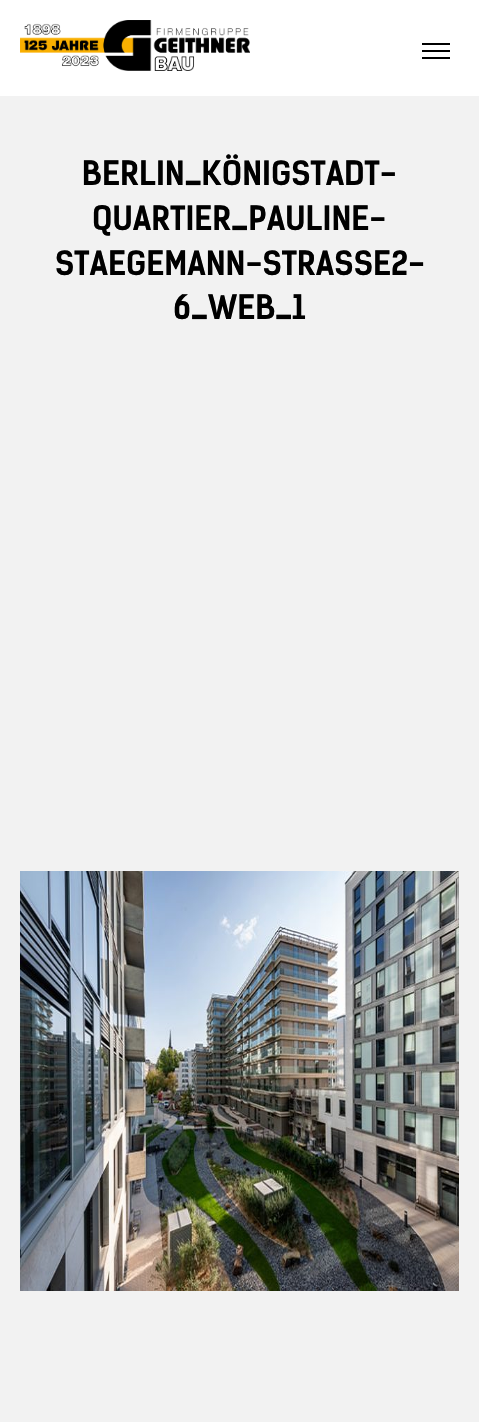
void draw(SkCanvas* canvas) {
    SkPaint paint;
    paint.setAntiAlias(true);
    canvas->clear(0xFFF2F2F2);
    paint.setColor(0xFFFFFFFF);
    canvas->drawRect(SkRect::MakeXYWH(0, 0, 479, 96), paint);
    canvas->drawImageRect(SkImages::DeferredFromEncodedData(SkData::MakeFromFileName("img1.png")), SkRect::MakeXYWH(20, 20, 230, 51), SkSamplingOptions());
    paint.setColor(0xFF000000);
    canvas->drawRect(SkRect::MakeXYWH(422, 43, 28, 2), paint);
    canvas->drawRect(SkRect::MakeXYWH(422, 50, 28, 2), paint);
    canvas->drawRect(SkRect::MakeXYWH(422, 57, 28, 2), paint);
    SkFont font1(fontMgr->matchFamilyStyle("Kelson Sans", SkFontStyle::Bold()), 32);
    font1.setSubpixel(true);
    canvas->drawString("BERLIN_KÖNIGSTADT-", 82, 185, font1, paint);
    canvas->drawString("QUARTIER_PAULINE-", 92, 230, font1, paint);
    canvas->drawString("STAEGEMANN-STRASSE2-", 55, 275, font1, paint);
    canvas->drawString("6_WEB_1", 173, 319, font1, paint);
    canvas->drawImageRect(SkImages::DeferredFromEncodedData(SkData::MakeFromFileName("img2.png")), SkRect::MakeXYWH(20, 871, 439, 420), SkSamplingOptions());
}
